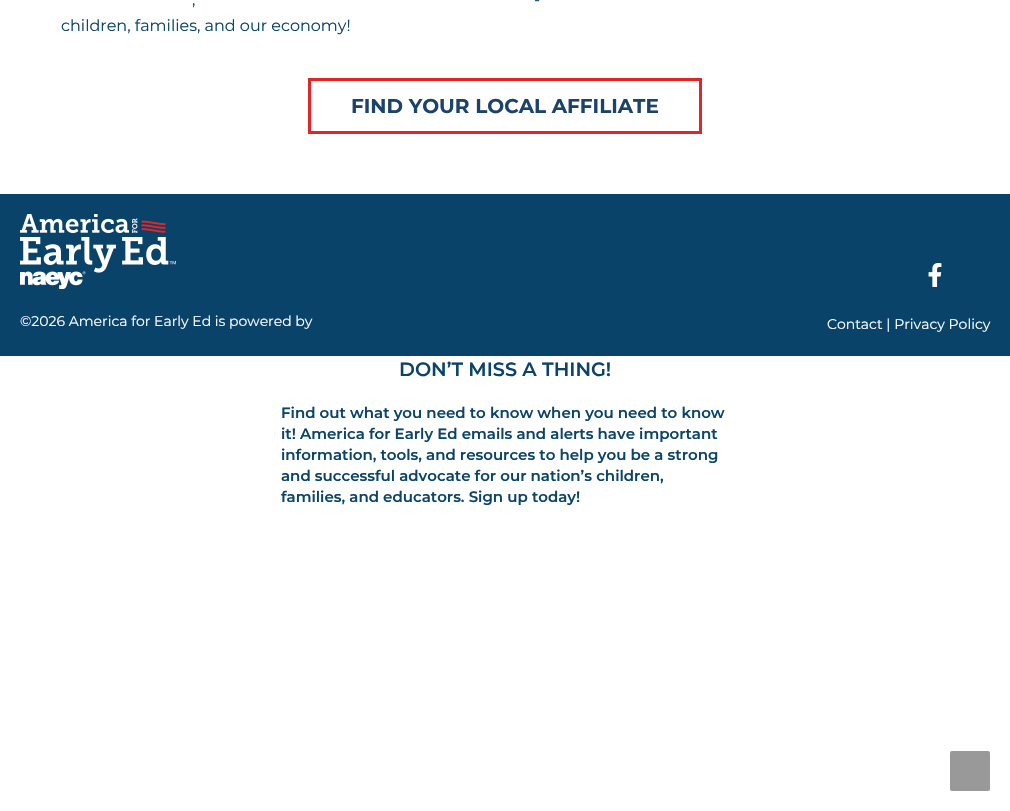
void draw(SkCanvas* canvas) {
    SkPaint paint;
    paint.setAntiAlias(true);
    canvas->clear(0xFFFFFFFF);
    SkFont font1(fontMgr->matchFamilyStyle("Montserrat", SkFontStyle::Normal()), 16);
    font1.setSubpixel(true);
    paint.setColor(0xFF0B446B);
    canvas->drawString("-", 534, 5, font1, paint);
    canvas->drawString(",", 192, 5, font1, paint);
    canvas->drawString("children, families, and our economy!", 61, 31, font1, paint);
    paint.setStyle(SkPaint::kStroke_Style);
    paint.setStrokeWidth(3);
    paint.setColor(0xFFE22526);
    canvas->drawRect(SkRect::MakeXYWH(309.5f, 79.5f, 391, 53), paint);
    SkFont font2(fontMgr->matchFamilyStyle("Montserrat", SkFontStyle::Bold()), 20);
    font2.setSubpixel(true);
    paint.setStyle(SkPaint::kFill_Style);
    paint.setColor(0xFF1C436A);
    canvas->drawString("FIND YOUR LOCAL AFFILIATE", 351, 113, font2, paint);
    paint.setColor(0xFF0A436A);
    canvas->drawRect(SkRect::MakeXYWH(0, 194, 1010, 162), paint);
    canvas->drawImageRect(SkImages::DeferredFromEncodedData(SkData::MakeFromFileName("img1.png")), SkRect::MakeXYWH(20, 214, 156, 75), SkSamplingOptions());
    SkFont font3(fontMgr->matchFamilyStyle("Montserrat", SkFontStyle::Normal()), 14);
    font3.setSubpixel(true);
    paint.setColor(0xFFFFFFFF);
    canvas->drawString("©2026 America for Early Ed is powered by", 20, 326, font3, paint);
    canvas->drawImageRect(SkImages::DeferredFromEncodedData(SkData::MakeFromFileName("img2.png")), SkRect::MakeXYWH(928, 263, 14, 24), SkSamplingOptions());
    canvas->drawString("Contact | Privacy Policy", 827, 329, font3, paint);
    SkFont font4(fontMgr->matchFamilyStyle("Montserrat", SkFontStyle(600, SkFontStyle::kNormal_Width, SkFontStyle::kUpright_Slant)), 19.25f);
    font4.setSubpixel(true);
    paint.setColor(0xFF0B446B);
    canvas->drawString("DON’T MISS A THING!", 399, 376, font4, paint);
    SkFont font5(fontMgr->matchFamilyStyle("Montserrat", SkFontStyle(600, SkFontStyle::kNormal_Width, SkFontStyle::kUpright_Slant)), 15);
    font5.setSubpixel(true);
    canvas->drawString("Find out what you need to know when you need to know", 281, 418, font5, paint);
    canvas->drawString("it! America for Early Ed emails and alerts have important", 281, 439, font5, paint);
    canvas->drawString("information, tools, and resources to help you be a strong", 281, 460, font5, paint);
    canvas->drawString("and successful advocate for our nation’s children,", 281, 481, font5, paint);
    canvas->drawString("families, and educators. Sign up today!", 281, 502, font5, paint);
    paint.setColor(0xFF999999);
    canvas->drawRoundRect(SkRect::MakeXYWH(950, 751, 40, 40), 2, 2, paint);
}
